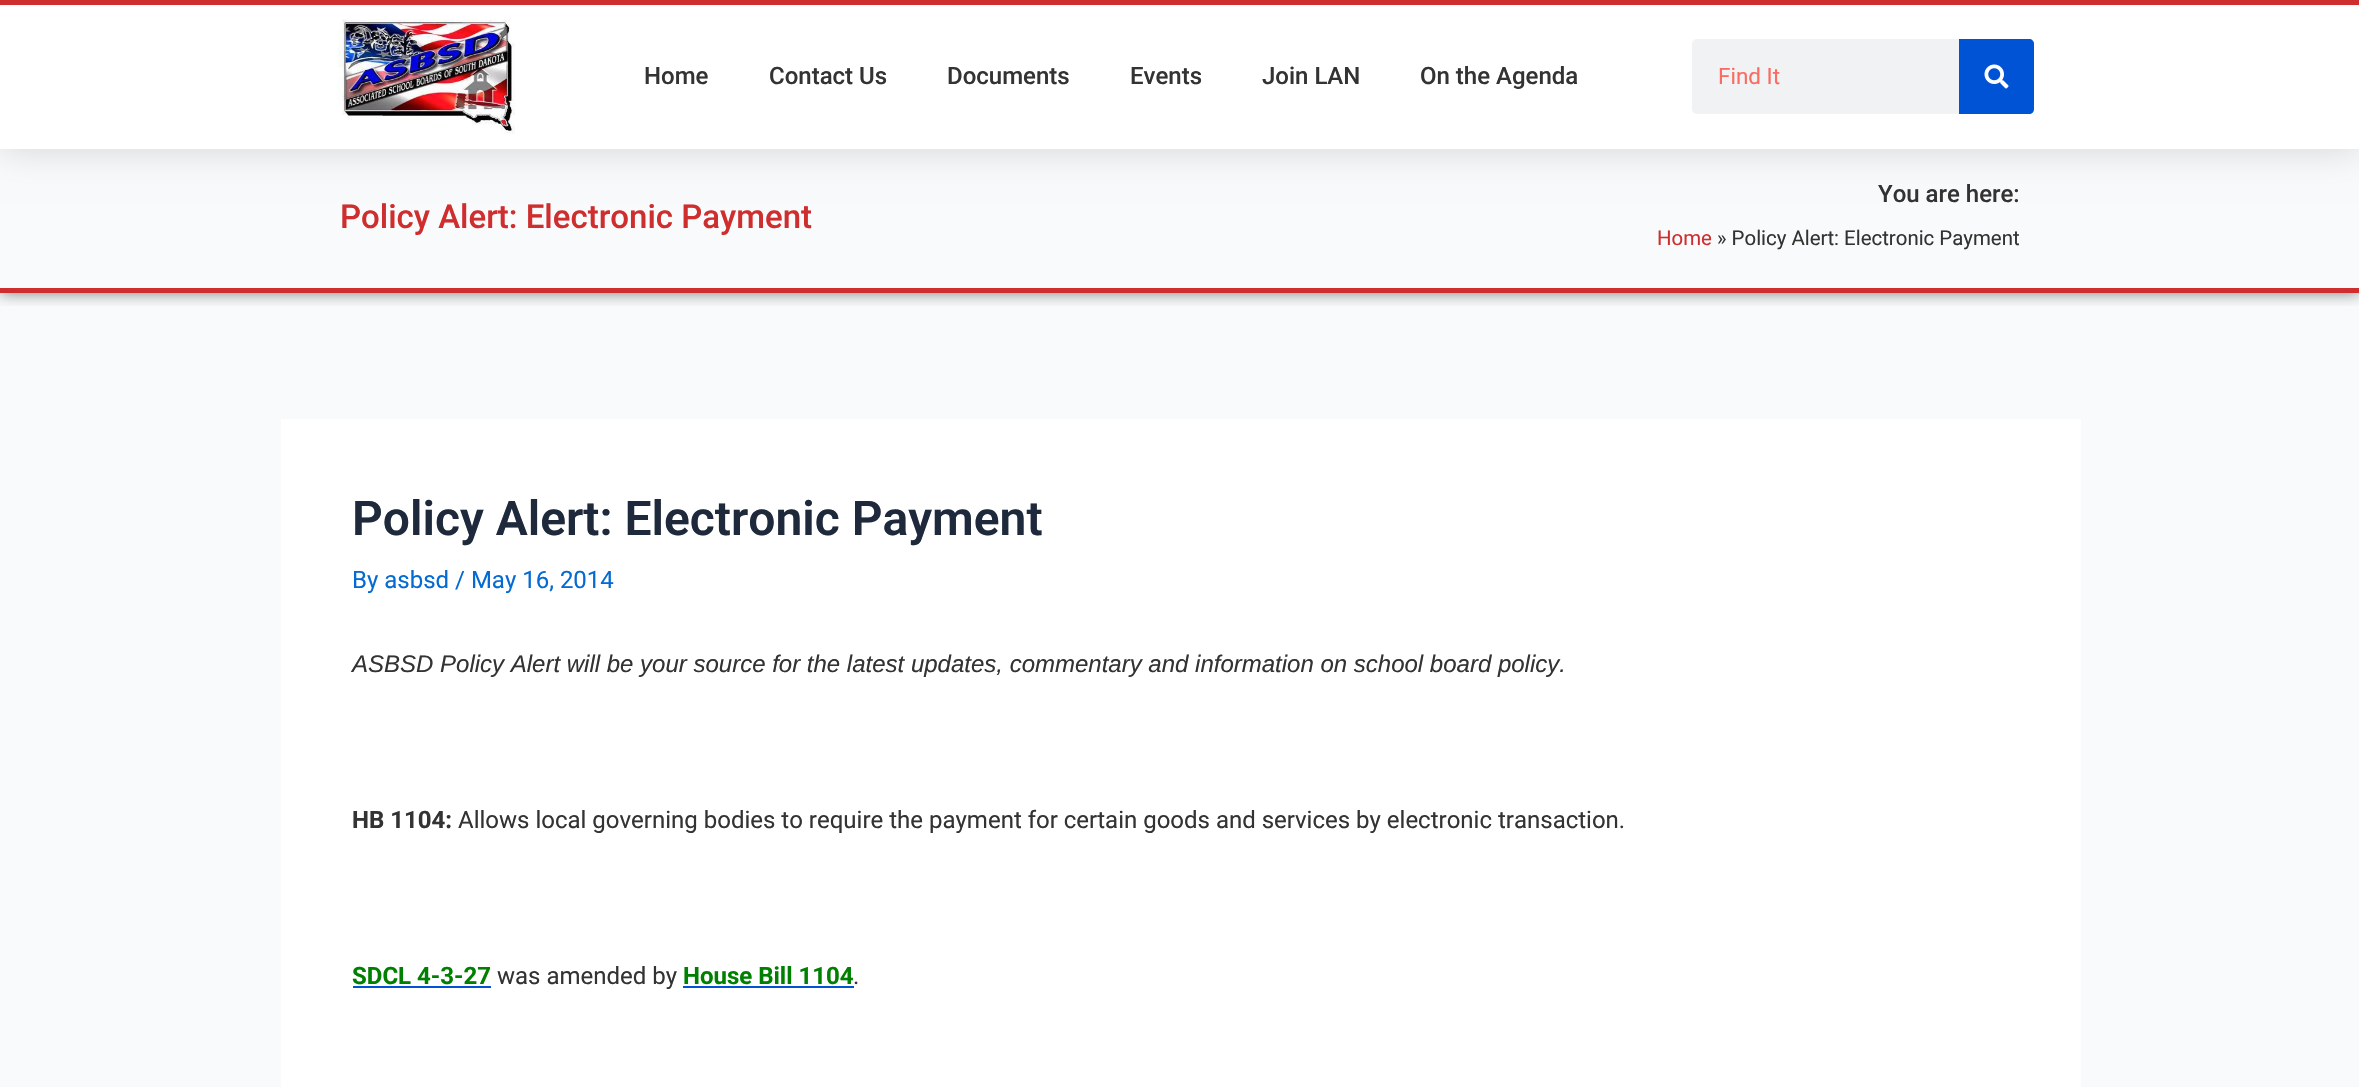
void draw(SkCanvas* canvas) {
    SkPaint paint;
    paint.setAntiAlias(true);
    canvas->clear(0xFFF9FAFB);
    paint.setColor(0x26000000);
    paint.setMaskFilter(SkMaskFilter::MakeBlur(kNormal_SkBlurStyle, 18));
    canvas->drawRect(SkRect::MakeXYWH(0, 0, 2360, 149), paint);
    paint.setMaskFilter(nullptr);
    canvas->save();
    canvas->clipRect(SkRect::MakeXYWH(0, 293, 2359, 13));
    paint.setColor(0x80000000);
    paint.setMaskFilter(SkMaskFilter::MakeBlur(kNormal_SkBlurStyle, 7.5f));
    canvas->drawRect(SkRect::MakeXYWH(0, 149, 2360, 144), paint);
    paint.setMaskFilter(nullptr);
    canvas->restore();
    paint.setColor(0xFFFFFFFF);
    canvas->drawRect(SkRect::MakeXYWH(0, 5, 2359, 144), paint);
    paint.setColor(0xFFCF2E2E);
    canvas->drawRect(SkRect::MakeXYWH(0, 0, 2359, 5), paint);
    canvas->drawImageRect(SkImages::DeferredFromEncodedData(SkData::MakeFromFileName("img1.png")), SkRect::MakeXYWH(337, 19, 178, 115), SkSamplingOptions());
    SkFont font1(fontMgr->matchFamilyStyle("Roboto", SkFontStyle(500, SkFontStyle::kNormal_Width, SkFontStyle::kUpright_Slant)), 24);
    font1.setSubpixel(true);
    paint.setColor(0xFF333333);
    canvas->drawString("Home", 644, 84, font1, paint);
    canvas->drawString("Contact Us", 769, 84, font1, paint);
    canvas->drawString("Documents", 947, 84, font1, paint);
    canvas->drawString("Events", 1130, 84, font1, paint);
    canvas->drawString("Join LAN", 1262, 84, font1, paint);
    canvas->drawString("On the Agenda", 1420, 84, font1, paint);
    paint.setColor(0xFFF1F2F3);
    canvas->drawRoundRect(SkRect::MakeXYWH(1692, 39, 342, 75), 5, 5, paint);
    SkFont font2(fontMgr->matchFamilyStyle("Roboto", SkFontStyle::Normal()), 22.5f);
    font2.setSubpixel(true);
    paint.setColor(0xFFF96C61);
    canvas->drawString("Find It", 1718, 84, font2, paint);
    paint.setColor(0xFF0053D5);
    canvas->drawPath(SkPathBuilder().moveTo(1959, 39).lineTo(2029, 39).cubicTo(2032, 39, 2034, 41, 2034, 44).lineTo(2034, 109).cubicTo(2034, 112, 2032, 114, 2029, 114).lineTo(1959, 114).close().detach(), paint);
    canvas->drawImageRect(SkImages::DeferredFromEncodedData(SkData::MakeFromFileName("img2.png")), SkRect::MakeXYWH(1984, 64, 25, 25), SkSamplingOptions());
    paint.setColor(0xFFCF2E2E);
    canvas->drawRect(SkRect::MakeXYWH(0, 288, 2359, 5), paint);
    SkFont font3(fontMgr->matchFamilyStyle("Roboto", SkFontStyle(500, SkFontStyle::kNormal_Width, SkFontStyle::kUpright_Slant)), 33);
    font3.setSubpixel(true);
    canvas->drawString("Policy Alert: Electronic Payment", 340, 228, font3, paint);
    paint.setColor(0xFF333333);
    canvas->drawString("You are here:", 1878, 202, font1, paint);
    SkFont font4(fontMgr->matchFamilyStyle("Roboto", SkFontStyle::Normal()), 20.4f);
    font4.setSubpixel(true);
    paint.setColor(0xFFCF2E2E);
    canvas->drawString("Home", 1657, 245, font4, paint);
    paint.setColor(0xFF333333);
    canvas->drawString("» Policy Alert: Electronic Payment", 1717, 245, font4, paint);
    paint.setColor(0xFFFFFFFF);
    canvas->drawRect(SkRect::MakeXYWH(281, 419, 1800, 668), paint);
    SkFont font5(fontMgr->matchFamilyStyle("Roboto", SkFontStyle(600, SkFontStyle::kNormal_Width, SkFontStyle::kUpright_Slant)), 48);
    font5.setSubpixel(true);
    paint.setColor(0xFF1E293B);
    canvas->drawString("Policy Alert: Electronic Payment", 352, 535, font5, paint);
    SkFont font6(fontMgr->matchFamilyStyle("Roboto", SkFontStyle::Normal()), 24);
    font6.setSubpixel(true);
    paint.setColor(0xFF046BD2);
    canvas->drawString("By asbsd / May 16, 2014", 352, 588, font6, paint);
    SkFont font7(fontMgr->matchFamilyStyle("Liberation Sans", SkFontStyle::Italic()), 24);
    font7.setSubpixel(true);
    paint.setColor(0xFF333333);
    canvas->drawString("ASBSD Policy Alert will be your source for the latest updates, commentary and information on school board policy.", 352, 672, font7, paint);
    SkFont font8(fontMgr->matchFamilyStyle("Roboto", SkFontStyle::Bold()), 24);
    font8.setSubpixel(true);
    canvas->drawString("HB 1104:", 352, 828, font8, paint);
    canvas->drawString("Allows local governing bodies to require the payment for certain goods and services by electronic transaction.", 458, 828, font6, paint);
    paint.setColor(0xFF008000);
    canvas->drawString("SDCL 4-3-27", 352, 984, font8, paint);
    paint.setColor(0xFF0053D5);
    canvas->drawRect(SkRect::MakeXYWH(353, 986, 138, 2), paint);
    paint.setColor(0xFF333333);
    canvas->drawString("was amended by", 497, 984, font6, paint);
    paint.setColor(0xFF008000);
    canvas->drawString("House Bill 1104", 683, 984, font8, paint);
    paint.setColor(0xFF0053D5);
    canvas->drawRect(SkRect::MakeXYWH(683, 986, 171, 2), paint);
    paint.setColor(0xFF333333);
    canvas->drawString(".", 853, 984, font6, paint);
}
